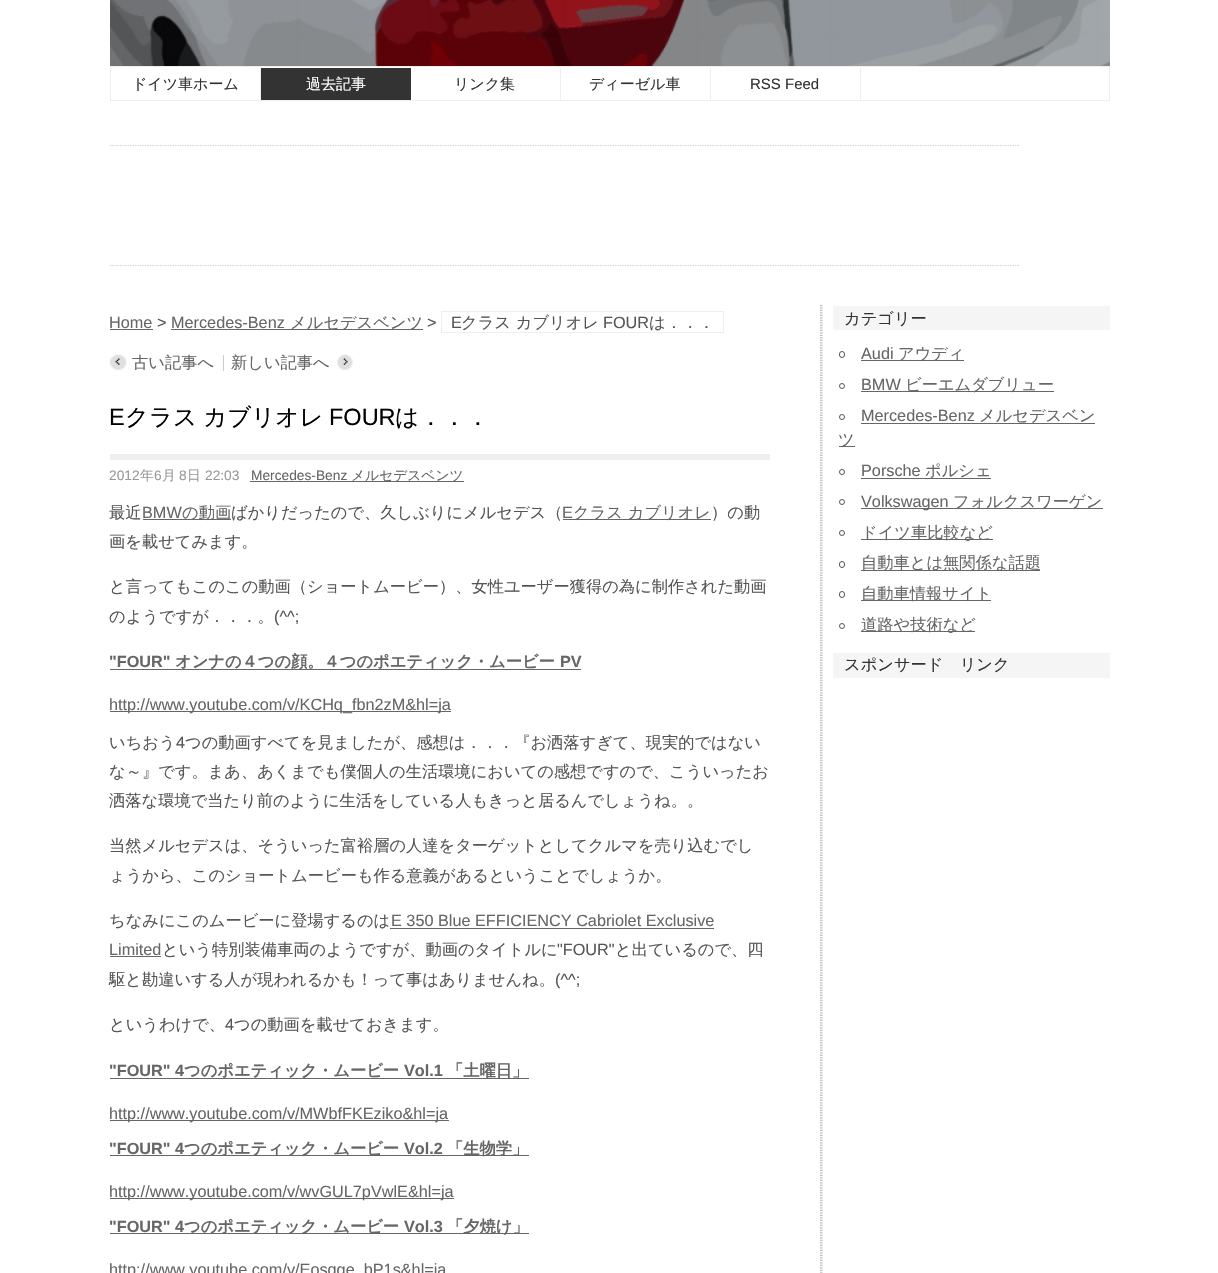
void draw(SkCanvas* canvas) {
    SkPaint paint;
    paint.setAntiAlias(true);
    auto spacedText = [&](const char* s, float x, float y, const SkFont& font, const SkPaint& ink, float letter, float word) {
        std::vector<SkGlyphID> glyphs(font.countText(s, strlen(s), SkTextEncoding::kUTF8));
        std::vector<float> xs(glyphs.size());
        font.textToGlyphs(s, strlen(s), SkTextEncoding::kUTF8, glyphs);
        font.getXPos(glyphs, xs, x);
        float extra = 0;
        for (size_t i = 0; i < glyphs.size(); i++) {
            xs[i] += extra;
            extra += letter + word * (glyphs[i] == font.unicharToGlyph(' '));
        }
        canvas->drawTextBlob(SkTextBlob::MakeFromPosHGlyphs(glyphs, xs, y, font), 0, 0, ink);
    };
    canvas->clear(0xFFFFFFFF);
    canvas->drawImageRect(SkImages::DeferredFromEncodedData(SkData::MakeFromFileName("img1.png")), SkRect::MakeXYWH(110, 0, 1000, 66), SkSamplingOptions());
    paint.setStyle(SkPaint::kStroke_Style);
    paint.setStrokeWidth(1);
    paint.setColor(0xFFEEEEEE);
    canvas->drawRect(SkRect::MakeXYWH(110.5f, 66.5f, 999, 34), paint);
    paint.setStyle(SkPaint::kFill_Style);
    canvas->drawRect(SkRect::MakeXYWH(260, 68, 1, 33), paint);
    SkFont font1(fontMgr->matchFamilyStyle("WenQuanYi Zen Hei", SkFontStyle(500, SkFontStyle::kNormal_Width, SkFontStyle::kUpright_Slant)), 15);
    font1.setSubpixel(true);
    paint.setColor(0xFF333333);
    canvas->drawString("ドイツ車ホーム", 132, 89, font1, paint);
    canvas->drawRect(SkRect::MakeXYWH(261, 68, 150, 32), paint);
    paint.setColor(0xFFFFFFFF);
    canvas->drawString("過去記事", 306, 89, font1, paint);
    paint.setColor(0xFFEEEEEE);
    canvas->drawRect(SkRect::MakeXYWH(560, 68, 1, 33), paint);
    paint.setColor(0xFF333333);
    canvas->drawString("リンク集", 454, 89, font1, paint);
    paint.setColor(0xFFEEEEEE);
    canvas->drawRect(SkRect::MakeXYWH(710, 68, 1, 33), paint);
    paint.setColor(0xFF333333);
    canvas->drawString("ディーゼル車", 589, 89, font1, paint);
    paint.setColor(0xFFEEEEEE);
    canvas->drawRect(SkRect::MakeXYWH(860, 68, 1, 33), paint);
    SkFont font2(fontMgr->matchFamilyStyle("Liberation Sans", SkFontStyle::Normal()), 15);
    font2.setSubpixel(true);
    paint.setColor(0xFF333333);
    canvas->drawString("RSS Feed", 750, 89, font2, paint);
    paint.setStyle(SkPaint::kStroke_Style);
    paint.setStrokeWidth(1.2f);
    paint.setColor(0xFFCCCCCC);
    paint.setPathEffect(SkDashPathEffect::Make({{1.25f, 1.25f}}, 0));
    canvas->drawPath(SkPathBuilder().moveTo(110, 145.5f).lineTo(1020, 145.5f).detach(), paint);
    paint.setPathEffect(nullptr);
    paint.setPathEffect(SkDashPathEffect::Make({{1.25f, 1.25f}}, 0));
    canvas->drawPath(SkPathBuilder().moveTo(110, 265.5f).lineTo(1020, 265.5f).detach(), paint);
    paint.setPathEffect(nullptr);
    SkFont font3(fontMgr->matchFamilyStyle("Liberation Sans", SkFontStyle::Normal()), 16.25f);
    font3.setSubpixel(true);
    paint.setStyle(SkPaint::kFill_Style);
    paint.setColor(0xFF666666);
    canvas->drawString("Home", 109, 328, font3, paint);
    canvas->drawRect(SkRect::MakeXYWH(110, 329, 43, 1), paint);
    paint.setColor(0xFF555555);
    canvas->drawString(">", 157, 328, font3, paint);
    paint.setColor(0xFF666666);
    canvas->drawString("Mercedes-Benz", 171, 328, font3, paint);
    canvas->drawRect(SkRect::MakeXYWH(171, 329, 252, 1), paint);
    SkFont font4(fontMgr->matchFamilyStyle("WenQuanYi Zen Hei", SkFontStyle(500, SkFontStyle::kNormal_Width, SkFontStyle::kUpright_Slant)), 16.25f);
    font4.setSubpixel(true);
    canvas->drawString("メルセデスベンツ", 290, 328, font4, paint);
    paint.setColor(0xFF555555);
    canvas->drawString(">", 427, 328, font3, paint);
    paint.setStyle(SkPaint::kStroke_Style);
    paint.setStrokeWidth(1);
    paint.setColor(0xFFEEEEEE);
    canvas->drawRect(SkRect::MakeXYWH(441.5f, 311.5f, 282, 21), paint);
    paint.setStyle(SkPaint::kFill_Style);
    paint.setColor(0xFF555555);
    canvas->drawString("E", 451, 328, font3, paint);
    canvas->drawString("クラス カブリオレ", 461, 328, font4, paint);
    canvas->drawString("FOUR", 603, 328, font3, paint);
    canvas->drawString("は．．．", 649, 328, font4, paint);
    canvas->drawImageRect(SkImages::DeferredFromEncodedData(SkData::MakeFromFileName("img2.png")), SkRect::MakeXYWH(110, 354, 17, 16), SkSamplingOptions());
    paint.setColor(0xFF666666);
    canvas->drawString("古い記事へ", 132, 368, font4, paint);
    canvas->drawImageRect(SkImages::DeferredFromEncodedData(SkData::MakeFromFileName("img3.png")), SkRect::MakeXYWH(337, 354, 16, 16), SkSamplingOptions());
    paint.setColor(0xFFCCCCCC);
    canvas->drawRect(SkRect::MakeXYWH(223, 355, 1, 16), paint);
    paint.setColor(0xFF666666);
    canvas->drawString("新しい記事へ", 231, 368, font4, paint);
    SkFont font5(fontMgr->matchFamilyStyle("Liberation Sans", SkFontStyle::Normal()), 23.5f);
    font5.setSubpixel(true);
    paint.setColor(0xFF000000);
    canvas->drawString("E", 109, 425, font5, paint);
    SkFont font6(fontMgr->matchFamilyStyle("WenQuanYi Zen Hei", SkFontStyle(500, SkFontStyle::kNormal_Width, SkFontStyle::kUpright_Slant)), 23.5f);
    font6.setSubpixel(true);
    spacedText("クラス カブリオレ", 125, 425, font6, paint, 0, -1);
    canvas->drawString("FOUR", 329, 425, font5, paint);
    canvas->drawString("は．．．", 395, 425, font6, paint);
    paint.setColor(0xFFEEEEEE);
    canvas->drawRect(SkRect::MakeXYWH(110, 454, 660, 6), paint);
    SkFont font7(fontMgr->matchFamilyStyle("Liberation Sans", SkFontStyle::Normal()), 13.75f);
    font7.setSubpixel(true);
    paint.setColor(0xFF999999);
    canvas->drawString("2012", 109, 480, font7, paint);
    SkFont font8(fontMgr->matchFamilyStyle("WenQuanYi Zen Hei", SkFontStyle(500, SkFontStyle::kNormal_Width, SkFontStyle::kUpright_Slant)), 13.75f);
    font8.setSubpixel(true);
    canvas->drawString("年", 140, 480, font8, paint);
    canvas->drawString("6", 154, 480, font7, paint);
    canvas->drawString("月", 162, 480, font8, paint);
    canvas->drawString("8", 179, 480, font7, paint);
    canvas->drawString("日", 187, 480, font8, paint);
    canvas->drawString("22:03", 205, 480, font7, paint);
    paint.setColor(0xFF666666);
    canvas->drawString("Mercedes-Benz", 251, 480, font7, paint);
    canvas->drawRect(SkRect::MakeXYWH(250, 481, 214, 1), paint);
    canvas->drawString("メルセデスベンツ", 351, 480, font8, paint);
    paint.setColor(0xFF555555);
    canvas->drawString("最近", 109, 518, font4, paint);
    paint.setColor(0xFF666666);
    canvas->drawString("BMW", 142, 518, font3, paint);
    canvas->drawRect(SkRect::MakeXYWH(143, 519, 88, 1), paint);
    canvas->drawString("の動画", 182, 518, font4, paint);
    paint.setColor(0xFF555555);
    canvas->drawString("ばかりだったので、久しぶりにメルセデス（", 231, 518, font4, paint);
    paint.setColor(0xFF666666);
    canvas->drawString("E", 562, 518, font3, paint);
    canvas->drawRect(SkRect::MakeXYWH(563, 519, 148, 1), paint);
    canvas->drawString("クラス カブリオレ", 573, 518, font4, paint);
    paint.setColor(0xFF555555);
    canvas->drawString("）の動", 711, 518, font4, paint);
    canvas->drawString("画を載せてみます。", 109, 547, font4, paint);
    canvas->drawString("と言ってもこのこの動画（ショートムービー）、女性ユーザー獲得の為に制作された動画", 109, 592, font4, paint);
    canvas->drawString("のようですが．．．。", 109, 622, font4, paint);
    canvas->drawString("(^^;", 274, 622, font3, paint);
    SkFont font9(fontMgr->matchFamilyStyle("Liberation Sans", SkFontStyle::Bold()), 16.25f);
    font9.setSubpixel(true);
    paint.setColor(0xFF666666);
    canvas->drawString("\"FOUR\"", 109, 667, font9, paint);
    canvas->drawRect(SkRect::MakeXYWH(110, 669, 471, 1), paint);
    SkFont font10(fontMgr->matchFamilyStyle("WenQuanYi Zen Hei", SkFontStyle::Bold()), 16.25f);
    font10.setSubpixel(true);
    canvas->drawString("オンナの４つの顔。４つのポエティック・ムービー", 175, 667, font10, paint);
    canvas->drawString("PV", 560, 667, font9, paint);
    canvas->drawRect(SkRect::MakeXYWH(110, 711, 341, 1), paint);
    canvas->drawString("http://www.youtube.com/v/KCHq_fbn2zM&hl=ja", 109, 710, font3, paint);
    paint.setColor(0xFF555555);
    canvas->drawString("いちおう", 109, 748, font4, paint);
    canvas->drawString("4", 176, 748, font3, paint);
    canvas->drawString("つの動画すべてを見ましたが、感想は．．．『お洒落すぎて、現実的ではない", 185, 748, font4, paint);
    canvas->drawString("な～』です。まあ、あくまでも僕個人の生活環境においての感想ですので、こういったお", 109, 777, font4, paint);
    canvas->drawString("洒落な環境で当たり前のように生活をしている人もきっと居るんでしょうね。。", 109, 806, font4, paint);
    canvas->drawString("当然メルセデスは、そういった富裕層の人達をターゲットとしてクルマを売り込むでし", 109, 851, font4, paint);
    canvas->drawString("ょうから、このショートムービーも作る意義があるということでしょうか。", 109, 881, font4, paint);
    canvas->drawString("ちなみにこのムービーに登場するのは", 109, 926, font4, paint);
    paint.setColor(0xFF666666);
    canvas->drawString("E 350 Blue EFFICIENCY Cabriolet Exclusive", 391, 926, font3, paint);
    canvas->drawRect(SkRect::MakeXYWH(390, 928, 324, 1), paint);
    canvas->drawString("Limited", 109, 955, font3, paint);
    canvas->drawRect(SkRect::MakeXYWH(110, 956, 51, 1), paint);
    paint.setColor(0xFF555555);
    canvas->drawString("という特別装備車両のようですが、動画のタイトルに", 162, 955, font4, paint);
    canvas->drawString("\"FOUR\"", 557, 955, font3, paint);
    canvas->drawString("と出ているので、四", 615, 955, font4, paint);
    canvas->drawString("駆と勘違いする人が現われるかも！って事はありませんね。", 109, 985, font4, paint);
    canvas->drawString("(^^;", 555, 985, font3, paint);
    canvas->drawString("というわけで、", 109, 1030, font4, paint);
    canvas->drawString("4", 225, 1030, font3, paint);
    canvas->drawString("つの動画を載せておきます。", 234, 1030, font4, paint);
    paint.setColor(0xFF666666);
    canvas->drawString("\"FOUR\" 4", 109, 1076, font9, paint);
    canvas->drawRect(SkRect::MakeXYWH(110, 1078, 419, 1), paint);
    canvas->drawString("つのポエティック・ムービー", 184, 1076, font10, paint);
    canvas->drawString("Vol.1", 404, 1076, font9, paint);
    canvas->drawString("「土曜日」", 447, 1076, font10, paint);
    canvas->drawRect(SkRect::MakeXYWH(110, 1120, 339, 1), paint);
    canvas->drawString("http://www.youtube.com/v/MWbfFKEziko&hl=ja", 109, 1119, font3, paint);
    canvas->drawString("\"FOUR\" 4", 109, 1154, font9, paint);
    canvas->drawRect(SkRect::MakeXYWH(110, 1155, 419, 1), paint);
    canvas->drawString("つのポエティック・ムービー", 184, 1154, font10, paint);
    canvas->drawString("Vol.2", 404, 1154, font9, paint);
    canvas->drawString("「生物学」", 447, 1154, font10, paint);
    canvas->drawRect(SkRect::MakeXYWH(110, 1198, 344, 1), paint);
    canvas->drawString("http://www.youtube.com/v/wvGUL7pVwlE&hl=ja", 109, 1197, font3, paint);
    canvas->drawString("\"FOUR\" 4", 109, 1232, font9, paint);
    canvas->drawRect(SkRect::MakeXYWH(110, 1233, 419, 1), paint);
    canvas->drawString("つのポエティック・ムービー", 184, 1232, font10, paint);
    canvas->drawString("Vol.3", 404, 1232, font9, paint);
    canvas->drawString("「夕焼け」", 447, 1232, font10, paint);
    canvas->drawString("http://www.youtube.com/v/Eosqge_bP1s&hl=ja", 109, 1275, font3, paint);
    canvas->drawImageRect(SkImages::DeferredFromEncodedData(SkData::MakeFromFileName("img4.png")), SkRect::MakeXYWH(820, 304, 3, 969), SkSamplingOptions());
    paint.setColor(0xFFF5F5F5);
    canvas->drawRect(SkRect::MakeXYWH(833, 306, 277, 24), paint);
    paint.setColor(0xFF333333);
    canvas->drawString("カテゴリー", 844, 324, font4, paint);
    paint.setStyle(SkPaint::kStroke_Style);
    paint.setColor(0xFF555555);
    canvas->drawRoundRect(SkRect::MakeXYWH(839.5f, 351.5f, 5, 6), 2.5f, 2.5f, paint);
    paint.setStyle(SkPaint::kFill_Style);
    paint.setColor(0xFF666666);
    canvas->drawString("Audi", 861, 359, font3, paint);
    canvas->drawRect(SkRect::MakeXYWH(861, 360, 103, 1), paint);
    canvas->drawString("アウディ", 898, 359, font4, paint);
    paint.setStyle(SkPaint::kStroke_Style);
    paint.setColor(0xFF555555);
    canvas->drawCircle(842, 386, 2.5f, paint);
    paint.setStyle(SkPaint::kFill_Style);
    paint.setColor(0xFF666666);
    canvas->drawString("BMW", 861, 390, font3, paint);
    canvas->drawRect(SkRect::MakeXYWH(861, 391, 193, 1), paint);
    canvas->drawString("ビーエムダブリュー", 905, 390, font4, paint);
    paint.setStyle(SkPaint::kStroke_Style);
    paint.setColor(0xFF555555);
    canvas->drawCircle(842, 417, 2.5f, paint);
    paint.setStyle(SkPaint::kFill_Style);
    paint.setColor(0xFF666666);
    canvas->drawString("Mercedes-Benz", 861, 421, font3, paint);
    canvas->drawString("メルセデスベン", 979, 421, font4, paint);
    canvas->drawRect(SkRect::MakeXYWH(861, 423, 234, 1), paint);
    canvas->drawRect(SkRect::MakeXYWH(839, 446, 16, 1), paint);
    canvas->drawString("ツ", 838, 445, font4, paint);
    paint.setStyle(SkPaint::kStroke_Style);
    paint.setColor(0xFF555555);
    canvas->drawCircle(842, 472, 2.5f, paint);
    paint.setStyle(SkPaint::kFill_Style);
    paint.setColor(0xFF666666);
    canvas->drawString("Porsche", 861, 476, font3, paint);
    canvas->drawRect(SkRect::MakeXYWH(861, 478, 130, 1), paint);
    canvas->drawString("ポルシェ", 925, 476, font4, paint);
    paint.setStyle(SkPaint::kStroke_Style);
    paint.setColor(0xFF555555);
    canvas->drawCircle(842, 502, 2.5f, paint);
    paint.setStyle(SkPaint::kFill_Style);
    paint.setColor(0xFF666666);
    canvas->drawRect(SkRect::MakeXYWH(861, 508, 242, 1), paint);
    canvas->drawString("Volkswagen", 861, 507, font3, paint);
    canvas->drawString("フォルクスワーゲン", 953, 507, font4, paint);
    paint.setStyle(SkPaint::kStroke_Style);
    paint.setColor(0xFF555555);
    canvas->drawCircle(842, 533, 2.5f, paint);
    paint.setStyle(SkPaint::kFill_Style);
    paint.setColor(0xFF666666);
    canvas->drawRect(SkRect::MakeXYWH(861, 539, 132, 1), paint);
    canvas->drawString("ドイツ車比較など", 861, 538, font4, paint);
    paint.setStyle(SkPaint::kStroke_Style);
    paint.setColor(0xFF555555);
    canvas->drawRoundRect(SkRect::MakeXYWH(839.5f, 561.5f, 5, 6), 2.5f, 2.5f, paint);
    paint.setStyle(SkPaint::kFill_Style);
    paint.setColor(0xFF666666);
    canvas->drawRect(SkRect::MakeXYWH(861, 570, 179, 1), paint);
    canvas->drawString("自動車とは無関係な話題", 861, 568, font4, paint);
    paint.setStyle(SkPaint::kStroke_Style);
    paint.setColor(0xFF555555);
    canvas->drawRoundRect(SkRect::MakeXYWH(839.5f, 591.5f, 5, 6), 2.5f, 2.5f, paint);
    paint.setStyle(SkPaint::kFill_Style);
    paint.setColor(0xFF666666);
    canvas->drawRect(SkRect::MakeXYWH(861, 600, 130, 1), paint);
    canvas->drawString("自動車情報サイト", 861, 599, font4, paint);
    paint.setStyle(SkPaint::kStroke_Style);
    paint.setColor(0xFF555555);
    canvas->drawCircle(842, 626, 2.5f, paint);
    paint.setStyle(SkPaint::kFill_Style);
    paint.setColor(0xFF666666);
    canvas->drawRect(SkRect::MakeXYWH(861, 631, 114, 1), paint);
    canvas->drawString("道路や技術など", 861, 630, font4, paint);
    paint.setColor(0xFFF5F5F5);
    canvas->drawRect(SkRect::MakeXYWH(833, 653, 277, 25), paint);
    paint.setColor(0xFF333333);
    canvas->drawString("スポンサード　リンク", 844, 670, font4, paint);
}
